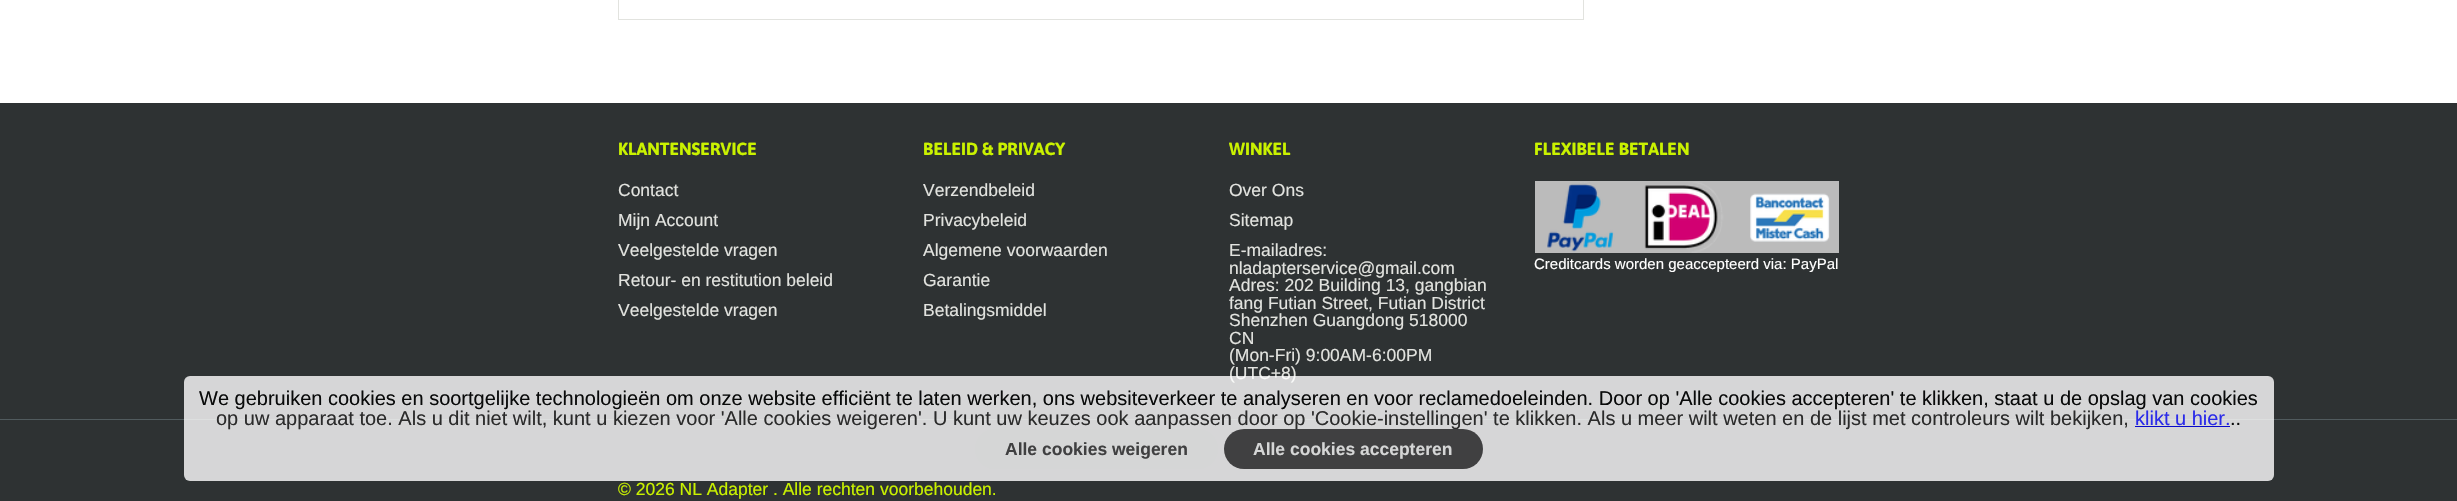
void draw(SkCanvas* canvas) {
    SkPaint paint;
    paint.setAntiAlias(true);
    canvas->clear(0xFFFFFFFF);
    paint.setStyle(SkPaint::kStroke_Style);
    paint.setStrokeWidth(1);
    paint.setColor(0xFFE2E3DF);
    canvas->drawRect(SkRect::MakeXYWH(618.5f, -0.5f, 965, 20), paint);
    paint.setStyle(SkPaint::kFill_Style);
    paint.setColor(0xFF2E3233);
    canvas->drawRect(SkRect::MakeXYWH(0, 103, 2457, 316), paint);
    paint.setColor(0xFF515B5E);
    canvas->drawRect(SkRect::MakeXYWH(0, 419, 2457, 1), paint);
    SkFont font1(fontMgr->matchFamilyStyle("Asap", SkFontStyle::Bold()), 17.5f);
    font1.setSubpixel(true);
    paint.setColor(0xFFCAF200);
    canvas->drawString("KLANTENSERVICE", 618, 155, font1, paint);
    SkFont font2(fontMgr->matchFamilyStyle("Liberation Sans", SkFontStyle::Normal()), 17.5f);
    font2.setSubpixel(true);
    paint.setColor(0xFFE2E3DF);
    canvas->drawString("Contact", 618, 196, font2, paint);
    canvas->drawString("Mijn Account", 618, 226, font2, paint);
    canvas->drawString("Veelgestelde vragen", 618, 256, font2, paint);
    canvas->drawString("Retour- en restitution beleid", 618, 286, font2, paint);
    canvas->drawString("Veelgestelde vragen", 618, 316, font2, paint);
    paint.setColor(0xFFCAF200);
    canvas->drawString("BELEID & PRIVACY", 923, 155, font1, paint);
    paint.setColor(0xFFE2E3DF);
    canvas->drawString("Verzendbeleid", 923, 196, font2, paint);
    canvas->drawString("Privacybeleid", 923, 226, font2, paint);
    canvas->drawString("Algemene voorwaarden", 923, 256, font2, paint);
    canvas->drawString("Garantie", 923, 286, font2, paint);
    canvas->drawString("Betalingsmiddel", 923, 316, font2, paint);
    paint.setColor(0xFFCAF200);
    canvas->drawString("WINKEL", 1229, 155, font1, paint);
    paint.setColor(0xFFE2E3DF);
    canvas->drawString("Over Ons", 1229, 196, font2, paint);
    canvas->drawString("Sitemap", 1229, 226, font2, paint);
    canvas->drawString("E-mailadres:", 1229, 256, font2, paint);
    canvas->drawString("nladapterservice@gmail.com", 1229, 274, font2, paint);
    canvas->drawString("Adres: 202 Building 13, gangbian", 1229, 291, font2, paint);
    canvas->drawString("fang Futian Street, Futian District", 1229, 309, font2, paint);
    canvas->drawString("Shenzhen Guangdong 518000", 1229, 326, font2, paint);
    canvas->drawString("CN", 1229, 344, font2, paint);
    canvas->drawString("(Mon-Fri) 9:00AM-6:00PM", 1229, 361, font2, paint);
    canvas->drawString("(UTC+8)", 1229, 379, font2, paint);
    paint.setColor(0xFFCAF200);
    canvas->drawString("FLEXIBELE BETALEN", 1534, 155, font1, paint);
    paint.setColor(0xFFBBBBBB);
    canvas->drawRect(SkRect::MakeXYWH(1535, 181, 304, 72), paint);
    canvas->drawImageRect(SkImages::DeferredFromEncodedData(SkData::MakeFromFileName("img1.png")), SkRect::MakeXYWH(1547, 182, 283, 71), SkSamplingOptions());
    SkFont font3(fontMgr->matchFamilyStyle("Liberation Sans", SkFontStyle::Normal()), 15);
    font3.setSubpixel(true);
    paint.setColor(0xFFFFFFFF);
    canvas->drawString("Creditcards worden geaccepteerd via: PayPal", 1534, 269, font3, paint);
    paint.setColor(0xFF2E3233);
    canvas->drawRect(SkRect::MakeXYWH(0, 420, 2457, 81), paint);
    paint.setColor(0xFFCAF200);
    canvas->drawString("© 2026 NL Adapter . Alle rechten voorbehouden.", 618, 495, font2, paint);
    paint.setColor(0xCCFFFFFF);
    canvas->drawRoundRect(SkRect::MakeXYWH(184, 376, 2090, 105), 6, 6, paint);
    SkFont font4(fontMgr->matchFamilyStyle("Liberation Sans", SkFontStyle::Normal()), 20);
    font4.setSubpixel(true);
    paint.setColor(0xFF090A0A);
    canvas->drawString("We gebruiken cookies en soortgelijke technologieën om onze website efficiënt te laten werken, ons websiteverkeer te analyseren en voor reclamedoeleinden. Door op 'Alle cookies accepteren' te klikken, staat u de opslag van cookies", 199, 405, font4, paint);
    paint.setColor(0xFF2B2B2B);
    canvas->drawString("op uw apparaat toe. Als u dit niet wilt, kunt u kiezen voor 'Alle cookies weigeren'. U kunt uw keuzes ook aanpassen door op 'Cookie-instellingen' te klikken. Als u meer wilt weten en de lijst met controleurs wilt bekijken,", 216, 425, font4, paint);
    paint.setColor(0xFF2B2BE9);
    canvas->drawString("klikt u hier.", 2135, 425, font4, paint);
    paint.setColor(0xFF090AC9);
    canvas->drawRect(SkRect::MakeXYWH(2135, 426, 95, 1), paint);
    paint.setColor(0xFF090A0A);
    canvas->drawString("..", 2230, 425, font4, paint);
    paint.setColor(0xFFD5D6D6);
    canvas->drawRoundRect(SkRect::MakeXYWH(975, 429, 243, 40), 20, 20, paint);
    SkFont font5(fontMgr->matchFamilyStyle("Liberation Sans", SkFontStyle::Bold()), 17.5f);
    font5.setSubpixel(true);
    paint.setColor(0xFF404041);
    canvas->drawString("Alle cookies weigeren", 1005, 455, font5, paint);
    canvas->drawRoundRect(SkRect::MakeXYWH(1224, 429, 259, 40), 20, 20, paint);
    paint.setColor(0xFFD5D6D6);
    canvas->drawString("Alle cookies accepteren", 1253, 455, font5, paint);
}
